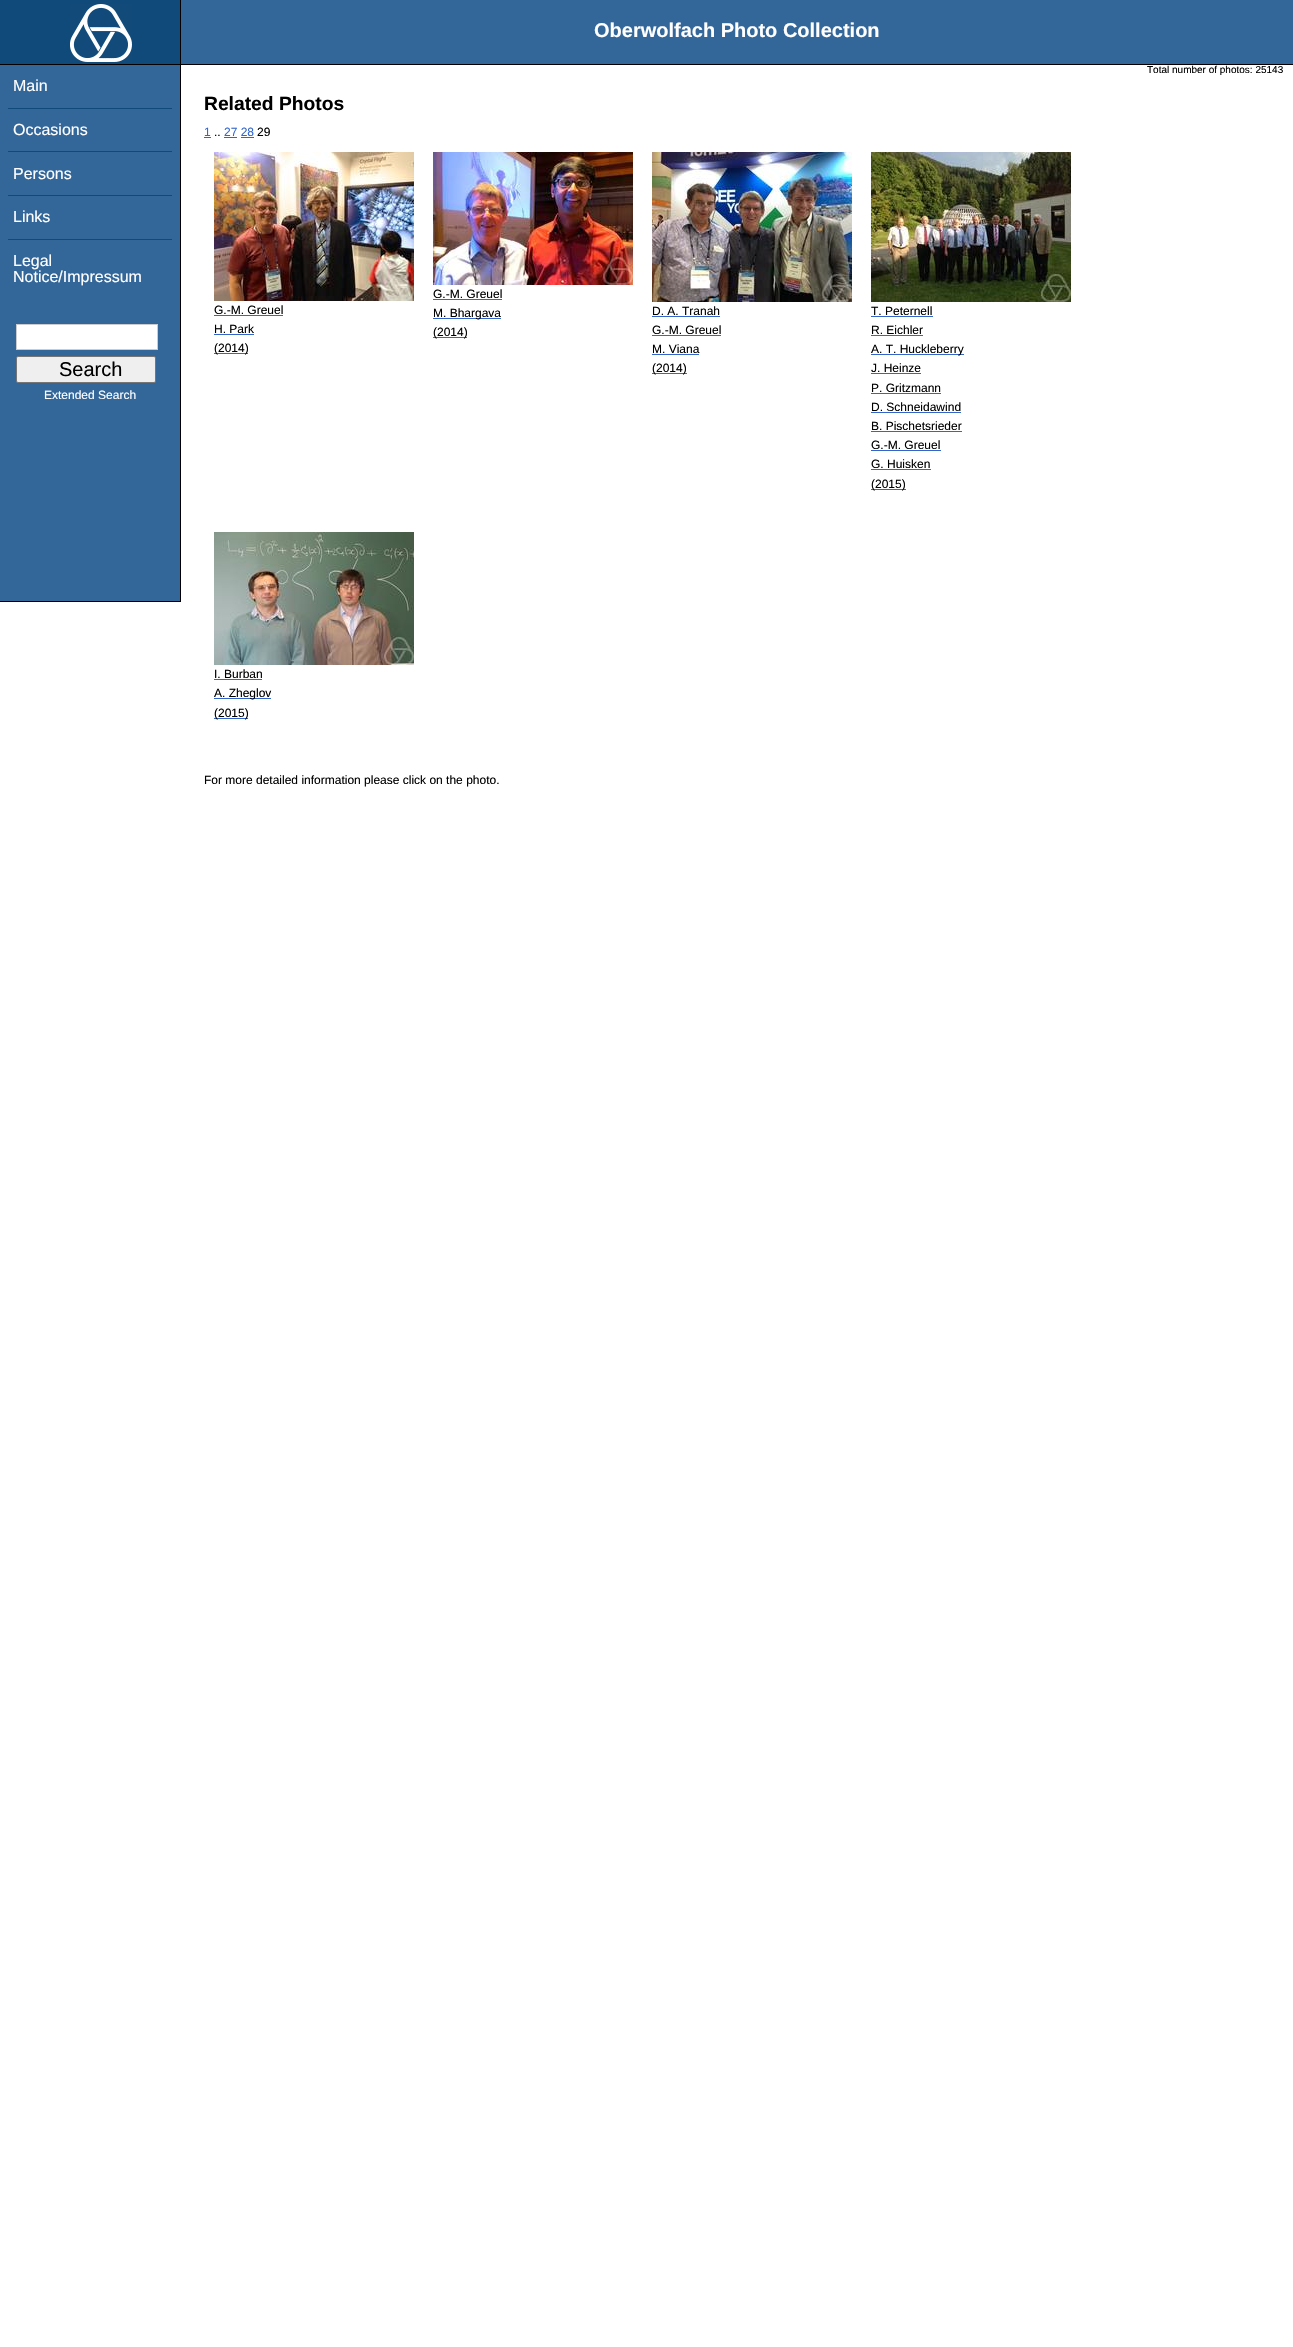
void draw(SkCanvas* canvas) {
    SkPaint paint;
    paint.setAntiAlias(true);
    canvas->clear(0xFFFFFFFF);
    paint.setColor(0xFF336699);
    canvas->drawRect(SkRect::MakeXYWH(181, 0, 1112, 64), paint);
    paint.setColor(0xFF000000);
    canvas->drawRect(SkRect::MakeXYWH(0, 64, 1293, 1), paint);
    paint.setColor(0xFF104A7B);
    canvas->drawRect(SkRect::MakeXYWH(0, 0, 180, 64), paint);
    paint.setColor(0xFF000000);
    canvas->drawRect(SkRect::MakeXYWH(180, 0, 1, 64), paint);
    canvas->drawImageRect(SkImages::DeferredFromEncodedData(SkData::MakeFromFileName("img1.png")), SkRect::MakeXYWH(70, 4, 62, 58), SkSamplingOptions());
    SkFont font1(fontMgr->matchFamilyStyle("Liberation Sans", SkFontStyle::Bold()), 20);
    font1.setSubpixel(true);
    paint.setColor(0xFFFFFFFF);
    canvas->drawString("Oberwolfach Photo Collection", 594, 37, font1, paint);
    SkFont font2(fontMgr->matchFamilyStyle("Liberation Sans", SkFontStyle::Normal()), 10);
    font2.setSubpixel(true);
    paint.setColor(0xFF000000);
    canvas->drawString("Total number of photos: 25143", 1147, 73, font2, paint);
    paint.setColor(0xFF336699);
    canvas->drawRect(SkRect::MakeXYWH(0, 65, 180, 536), paint);
    paint.setColor(0xFF000000);
    canvas->drawRect(SkRect::MakeXYWH(180, 65, 1, 537), paint);
    canvas->drawRect(SkRect::MakeXYWH(0, 601, 181, 1), paint);
    SkFont font3(fontMgr->matchFamilyStyle("Liberation Sans", SkFontStyle::Normal()), 16);
    font3.setSubpixel(true);
    paint.setColor(0xFFFFFFFF);
    canvas->drawString("Main", 13, 91, font3, paint);
    paint.setColor(0xFF104A7B);
    canvas->drawRect(SkRect::MakeXYWH(8, 108, 164, 1), paint);
    paint.setColor(0xFFFFFFFF);
    canvas->drawString("Occasions", 13, 135, font3, paint);
    paint.setColor(0xFF104A7B);
    canvas->drawRect(SkRect::MakeXYWH(8, 151, 164, 1), paint);
    paint.setColor(0xFFFFFFFF);
    canvas->drawString("Persons", 13, 179, font3, paint);
    paint.setColor(0xFF104A7B);
    canvas->drawRect(SkRect::MakeXYWH(8, 195, 164, 1), paint);
    paint.setColor(0xFFFFFFFF);
    canvas->drawString("Links", 13, 222, font3, paint);
    paint.setColor(0xFF104A7B);
    canvas->drawRect(SkRect::MakeXYWH(8, 239, 164, 1), paint);
    paint.setColor(0xFFFFFFFF);
    canvas->drawString("Legal", 13, 266, font3, paint);
    canvas->drawString("Notice/Impressum", 13, 282, font3, paint);
    canvas->drawRect(SkRect::MakeXYWH(16.5f, 324.5f, 141, 25), paint);
    paint.setStyle(SkPaint::kStroke_Style);
    paint.setStrokeWidth(1);
    paint.setColor(0xFFCCCCCC);
    canvas->drawRect(SkRect::MakeXYWH(16.5f, 324.5f, 141, 25), paint);
    paint.setStyle(SkPaint::kFill_Style);
    paint.setColor(0xFFEFEFEF);
    canvas->drawRoundRect(SkRect::MakeXYWH(16.5f, 356.5f, 139, 26), 1.5f, 1.5f, paint);
    paint.setStyle(SkPaint::kStroke_Style);
    paint.setColor(0xFF767676);
    canvas->drawRoundRect(SkRect::MakeXYWH(16.5f, 356.5f, 139, 26), 1.5f, 1.5f, paint);
    SkFont font4(fontMgr->matchFamilyStyle("Liberation Sans", SkFontStyle::Normal()), 20);
    font4.setSubpixel(true);
    paint.setStyle(SkPaint::kFill_Style);
    paint.setColor(0xFF000000);
    canvas->drawString("Search", 59, 376, font4, paint);
    SkFont font5(fontMgr->matchFamilyStyle("Liberation Sans", SkFontStyle::Normal()), 12);
    font5.setSubpixel(true);
    paint.setColor(0xFFFFFFFF);
    canvas->drawString("Extended Search", 44, 399, font5, paint);
    SkFont font6(fontMgr->matchFamilyStyle("Liberation Sans", SkFontStyle::Bold()), 19.25f);
    font6.setSubpixel(true);
    paint.setColor(0xFF000000);
    canvas->drawString("Related Photos", 204, 110, font6, paint);
    paint.setColor(0xFF3366CC);
    canvas->drawString("1", 204, 136, font5, paint);
    canvas->drawRect(SkRect::MakeXYWH(204, 137, 7, 1), paint);
    paint.setColor(0xFF000000);
    canvas->drawString("..", 214, 136, font5, paint);
    paint.setColor(0xFF3366CC);
    canvas->drawString("27 28", 224, 136, font5, paint);
    canvas->drawRect(SkRect::MakeXYWH(224, 137, 13, 1), paint);
    paint.setColor(0xFF000000);
    canvas->drawString("29", 257, 136, font5, paint);
    paint.setColor(0xFF3366CC);
    canvas->drawRect(SkRect::MakeXYWH(241, 137, 13, 1), paint);
    canvas->drawImageRect(SkImages::DeferredFromEncodedData(SkData::MakeFromFileName("img2.png")), SkRect::MakeXYWH(214, 152, 200, 149), SkSamplingOptions());
    paint.setColor(0xFF000000);
    canvas->drawString("G.-M. Greuel", 214, 314, font5, paint);
    paint.setColor(0xFF3366CC);
    canvas->drawRect(SkRect::MakeXYWH(214, 315, 69, 1), paint);
    paint.setColor(0xFF000000);
    canvas->drawString("H. Park", 214, 333, font5, paint);
    paint.setColor(0xFF3366CC);
    canvas->drawRect(SkRect::MakeXYWH(214, 334, 40, 1), paint);
    canvas->drawRect(SkRect::MakeXYWH(214, 353, 34, 1), paint);
    paint.setColor(0xFF000000);
    canvas->drawString("(2014)", 214, 352, font5, paint);
    canvas->drawImageRect(SkImages::DeferredFromEncodedData(SkData::MakeFromFileName("img3.png")), SkRect::MakeXYWH(433, 152, 200, 133), SkSamplingOptions());
    canvas->drawString("G.-M. Greuel", 433, 298, font5, paint);
    paint.setColor(0xFF3366CC);
    canvas->drawRect(SkRect::MakeXYWH(433, 299, 69, 1), paint);
    canvas->drawRect(SkRect::MakeXYWH(433, 318, 68, 1), paint);
    paint.setColor(0xFF000000);
    canvas->drawString("M. Bhargava", 433, 317, font5, paint);
    paint.setColor(0xFF3366CC);
    canvas->drawRect(SkRect::MakeXYWH(433, 337, 34, 1), paint);
    paint.setColor(0xFF000000);
    canvas->drawString("(2014)", 433, 336, font5, paint);
    canvas->drawImageRect(SkImages::DeferredFromEncodedData(SkData::MakeFromFileName("img4.png")), SkRect::MakeXYWH(652, 152, 200, 150), SkSamplingOptions());
    canvas->drawString("D. A. Tranah", 652, 315, font5, paint);
    paint.setColor(0xFF3366CC);
    canvas->drawRect(SkRect::MakeXYWH(652, 316, 68, 1), paint);
    paint.setColor(0xFF000000);
    canvas->drawString("G.-M. Greuel", 652, 334, font5, paint);
    paint.setColor(0xFF3366CC);
    canvas->drawRect(SkRect::MakeXYWH(652, 335, 69, 1), paint);
    paint.setColor(0xFF000000);
    canvas->drawString("M. Viana", 652, 353, font5, paint);
    paint.setColor(0xFF3366CC);
    canvas->drawRect(SkRect::MakeXYWH(652, 354, 47, 1), paint);
    canvas->drawRect(SkRect::MakeXYWH(652, 373, 35, 1), paint);
    paint.setColor(0xFF000000);
    canvas->drawString("(2014)", 652, 372, font5, paint);
    canvas->drawImageRect(SkImages::DeferredFromEncodedData(SkData::MakeFromFileName("img5.png")), SkRect::MakeXYWH(871, 152, 200, 150), SkSamplingOptions());
    canvas->drawString("T. Peternell", 871, 315, font5, paint);
    paint.setColor(0xFF3366CC);
    canvas->drawRect(SkRect::MakeXYWH(871, 316, 62, 1), paint);
    paint.setColor(0xFF000000);
    canvas->drawString("R. Eichler", 871, 334, font5, paint);
    paint.setColor(0xFF3366CC);
    canvas->drawRect(SkRect::MakeXYWH(871, 335, 52, 1), paint);
    canvas->drawRect(SkRect::MakeXYWH(871, 354, 93, 1), paint);
    paint.setColor(0xFF000000);
    canvas->drawString("A. T. Huckleberry", 871, 353, font5, paint);
    canvas->drawString("J. Heinze", 871, 372, font5, paint);
    paint.setColor(0xFF3366CC);
    canvas->drawRect(SkRect::MakeXYWH(871, 373, 50, 1), paint);
    paint.setColor(0xFF000000);
    canvas->drawString("P. Gritzmann", 871, 392, font5, paint);
    paint.setColor(0xFF3366CC);
    canvas->drawRect(SkRect::MakeXYWH(871, 393, 70, 1), paint);
    paint.setColor(0xFF000000);
    canvas->drawString("D. Schneidawind", 871, 411, font5, paint);
    paint.setColor(0xFF3366CC);
    canvas->drawRect(SkRect::MakeXYWH(871, 412, 90, 1), paint);
    paint.setColor(0xFF000000);
    canvas->drawString("B. Pischetsrieder", 871, 430, font5, paint);
    paint.setColor(0xFF3366CC);
    canvas->drawRect(SkRect::MakeXYWH(871, 431, 91, 1), paint);
    paint.setColor(0xFF000000);
    canvas->drawString("G.-M. Greuel", 871, 449, font5, paint);
    paint.setColor(0xFF3366CC);
    canvas->drawRect(SkRect::MakeXYWH(871, 450, 70, 1), paint);
    paint.setColor(0xFF000000);
    canvas->drawString("G. Huisken", 871, 468, font5, paint);
    paint.setColor(0xFF3366CC);
    canvas->drawRect(SkRect::MakeXYWH(871, 469, 60, 1), paint);
    canvas->drawRect(SkRect::MakeXYWH(871, 489, 35, 1), paint);
    paint.setColor(0xFF000000);
    canvas->drawString("(2015)", 871, 488, font5, paint);
    canvas->drawImageRect(SkImages::DeferredFromEncodedData(SkData::MakeFromFileName("img6.png")), SkRect::MakeXYWH(214, 532, 200, 133), SkSamplingOptions());
    canvas->drawString("I. Burban", 214, 678, font5, paint);
    paint.setColor(0xFF3366CC);
    canvas->drawRect(SkRect::MakeXYWH(214, 679, 48, 1), paint);
    canvas->drawRect(SkRect::MakeXYWH(214, 698, 57, 1), paint);
    paint.setColor(0xFF000000);
    canvas->drawString("A. Zheglov", 214, 697, font5, paint);
    paint.setColor(0xFF3366CC);
    canvas->drawRect(SkRect::MakeXYWH(214, 718, 34, 1), paint);
    paint.setColor(0xFF000000);
    canvas->drawString("(2015)", 214, 717, font5, paint);
    canvas->drawString("For more detailed information please click on the photo.", 204, 784, font5, paint);
}
